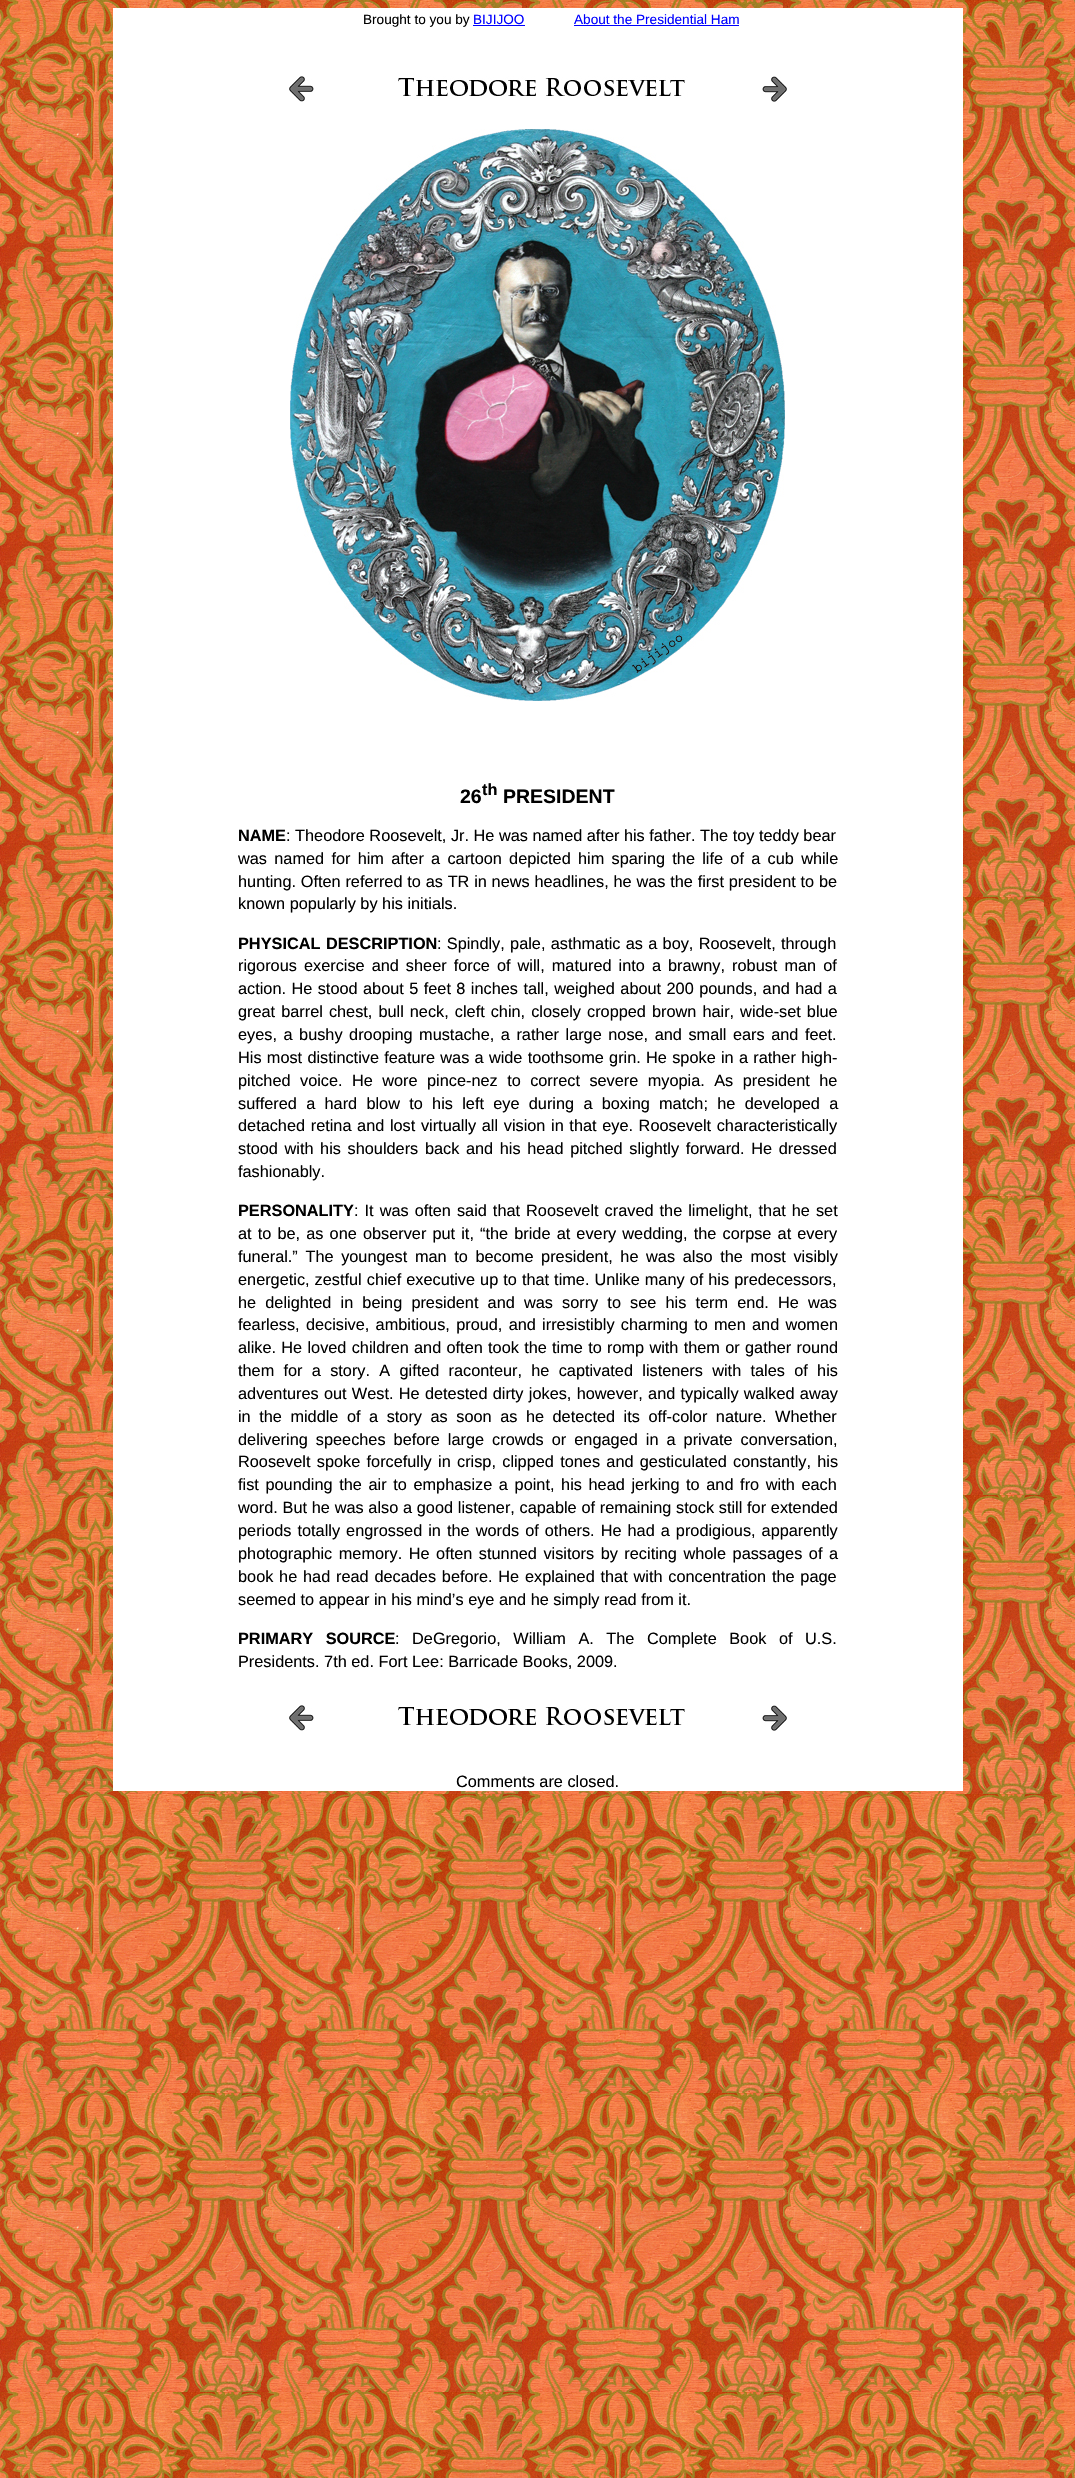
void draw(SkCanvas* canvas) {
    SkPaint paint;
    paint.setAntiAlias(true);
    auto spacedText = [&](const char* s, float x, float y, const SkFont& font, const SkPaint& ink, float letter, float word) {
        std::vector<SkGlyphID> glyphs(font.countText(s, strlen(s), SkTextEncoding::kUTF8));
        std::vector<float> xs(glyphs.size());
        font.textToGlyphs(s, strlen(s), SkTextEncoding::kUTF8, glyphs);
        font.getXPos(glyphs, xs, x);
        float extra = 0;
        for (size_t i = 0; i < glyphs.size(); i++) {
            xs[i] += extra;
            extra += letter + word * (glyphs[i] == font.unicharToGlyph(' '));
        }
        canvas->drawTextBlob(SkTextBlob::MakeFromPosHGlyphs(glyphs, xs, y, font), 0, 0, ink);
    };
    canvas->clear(0xFFFFFFFF);
    canvas->drawImageRect(SkImages::DeferredFromEncodedData(SkData::MakeFromFileName("img1.png")), SkRect::MakeXYWH(0, 0, 1075, 2478), SkSamplingOptions());
    paint.setColor(0xFFFFFFFF);
    canvas->drawRect(SkRect::MakeXYWH(113, 8, 850, 1783), paint);
    SkFont font1(fontMgr->matchFamilyStyle("Liberation Sans", SkFontStyle::Normal()), 13.6f);
    font1.setSubpixel(true);
    paint.setColor(0xFF000000);
    canvas->drawString("Brought to you by", 363, 24, font1, paint);
    paint.setColor(0xFF0000FF);
    canvas->drawString("BIJIJOO", 473, 24, font1, paint);
    canvas->drawRect(SkRect::MakeXYWH(473, 25, 52, 1), paint);
    canvas->drawString("About the Presidential Ham", 574, 24, font1, paint);
    canvas->drawRect(SkRect::MakeXYWH(574, 25, 165, 1), paint);
    canvas->drawImageRect(SkImages::DeferredFromEncodedData(SkData::MakeFromFileName("img2.png")), SkRect::MakeXYWH(289, 76, 498, 26), SkSamplingOptions());
    canvas->drawImageRect(SkImages::DeferredFromEncodedData(SkData::MakeFromFileName("img3.png")), SkRect::MakeXYWH(290, 129, 495, 572), SkSamplingOptions());
    SkFont font2(fontMgr->matchFamilyStyle("Liberation Sans", SkFontStyle::Bold()), 19.5f);
    font2.setSubpixel(true);
    paint.setColor(0xFF000000);
    canvas->drawString("26", 460, 803, font2, paint);
    SkFont font3(fontMgr->matchFamilyStyle("Liberation Sans", SkFontStyle::Bold()), 16.3f);
    font3.setSubpixel(true);
    canvas->drawString("th", 482, 795, font3, paint);
    canvas->drawString("PRESIDENT", 503, 803, font2, paint);
    canvas->drawString("NAME", 238, 841, font3, paint);
    SkFont font4(fontMgr->matchFamilyStyle("Liberation Sans", SkFontStyle::Normal()), 16.3f);
    font4.setSubpixel(true);
    canvas->drawString(": Theodore Roosevelt, Jr. He was named after his father. The toy teddy bear", 286, 841, font4, paint);
    spacedText("was named for him after a cartoon depicted him sparing the life of a cub while", 238, 864, font4, paint, 0, 2.75f);
    spacedText("hunting. Often referred to as TR in news headlines, he was the first president to be", 238, 887, font4, paint, 0, 0.25f);
    canvas->drawString("known popularly by his initials.", 238, 909, font4, paint);
    spacedText("PHYSICAL DESCRIPTION", 238, 949, font3, paint, 0, 1);
    spacedText(": Spindly, pale, asthmatic as a boy, Roosevelt, through", 437, 949, font4, paint, 0, 0.75f);
    spacedText("rigorous exercise and sheer force of will, matured into a brawny, robust man of", 238, 971, font4, paint, 0, 2.5f);
    spacedText("action. He stood about 5 feet 8 inches tall, weighed about 200 pounds, and had a", 238, 994, font4, paint, 0, 0.9f);
    spacedText("great barrel chest, bull neck, cleft chin, closely cropped brown hair, wide-set blue", 238, 1017, font4, paint, 0, 1.5f);
    spacedText("eyes, a bushy drooping mustache, a rather large nose, and small ears and feet.", 238, 1040, font4, paint, 0, 2);
    spacedText("His most distinctive feature was a wide toothsome grin. He spoke in a rather high-", 238, 1063, font4, paint, 0, 0.75f);
    spacedText("pitched voice. He wore pince-nez to correct severe myopia. As president he", 238, 1086, font4, paint, 0, 4.9f);
    spacedText("suffered a hard blow to his left eye during a boxing match; he developed a", 238, 1109, font4, paint, 0, 4.75f);
    spacedText("detached retina and lost virtually all vision in that eye. Roosevelt characteristically", 238, 1131, font4, paint, 0, 1.1f);
    spacedText("stood with his shoulders back and his head pitched slightly forward. He dressed", 238, 1154, font4, paint, 0, 2.1f);
    canvas->drawString("fashionably.", 238, 1177, font4, paint);
    canvas->drawString("PERSONALITY", 238, 1216, font3, paint);
    spacedText(": It was often said that Roosevelt craved the limelight, that he set", 354, 1216, font4, paint, 0, 1.5f);
    spacedText("at to be, as one observer put it, “the bride at every wedding, the corpse at every", 238, 1239, font4, paint, 0, 1.6f);
    spacedText("funeral.” The youngest man to become president, he was also the most visibly", 238, 1262, font4, paint, 0, 3.1f);
    spacedText("energetic, zestful chief executive up to that time. Unlike many of his predecessors,", 238, 1285, font4, paint, 0, 0.5f);
    spacedText("he delighted in being president and was sorry to see his term end. He was", 238, 1308, font4, paint, 0, 4.6f);
    spacedText("fearless, decisive, ambitious, proud, and irresistibly charming to men and women", 238, 1330, font4, paint, 0, 1.75f);
    spacedText("alike. He loved children and often took the time to romp with them or gather round", 238, 1353, font4, paint, 0, 0.75f);
    spacedText("them for a story. A gifted raconteur, he captivated listeners with tales of his", 238, 1376, font4, paint, 0, 4.75f);
    spacedText("adventures out West. He detested dirty jokes, however, and typically walked away", 238, 1399, font4, paint, 0, 0.75f);
    spacedText("in the middle of a story as soon as he detected its off-color nature. Whether", 238, 1422, font4, paint, 0, 4);
    spacedText("delivering speeches before large crowds or engaged in a private conversation,", 238, 1445, font4, paint, 0, 3.5f);
    spacedText("Roosevelt spoke forcefully in crisp, clipped tones and gesticulated constantly, his", 238, 1467, font4, paint, 0, 1.75f);
    spacedText("fist pounding the air to emphasize a point, his head jerking to and fro with each", 238, 1490, font4, paint, 0, 2.1f);
    spacedText("word. But he was also a good listener, capable of remaining stock still for extended", 238, 1513, font4, paint, 0, 0.2f);
    spacedText("periods totally engrossed in the words of others. He had a prodigious, apparently", 238, 1536, font4, paint, 0, 1.5f);
    spacedText("photographic memory. He often stunned visitors by reciting whole passages of a", 238, 1559, font4, paint, 0, 2);
    spacedText("book he had read decades before. He explained that with concentration the page", 238, 1582, font4, paint, 0, 1.25f);
    canvas->drawString("seemed to appear in his mind’s eye and he simply read from it.", 238, 1605, font4, paint);
    spacedText("PRIMARY SOURCE", 238, 1644, font3, paint, 0, 8);
    spacedText(": DeGregorio, William A. The Complete Book of U.S.", 395, 1644, font4, paint, 0, 8);
    canvas->drawString("Presidents. 7th ed. Fort Lee: Barricade Books, 2009.", 238, 1667, font4, paint);
    canvas->drawImageRect(SkImages::DeferredFromEncodedData(SkData::MakeFromFileName("img2.png")), SkRect::MakeXYWH(289, 1705, 498, 26), SkSamplingOptions());
    canvas->drawString("Comments are closed.", 456, 1787, font4, paint);
}
